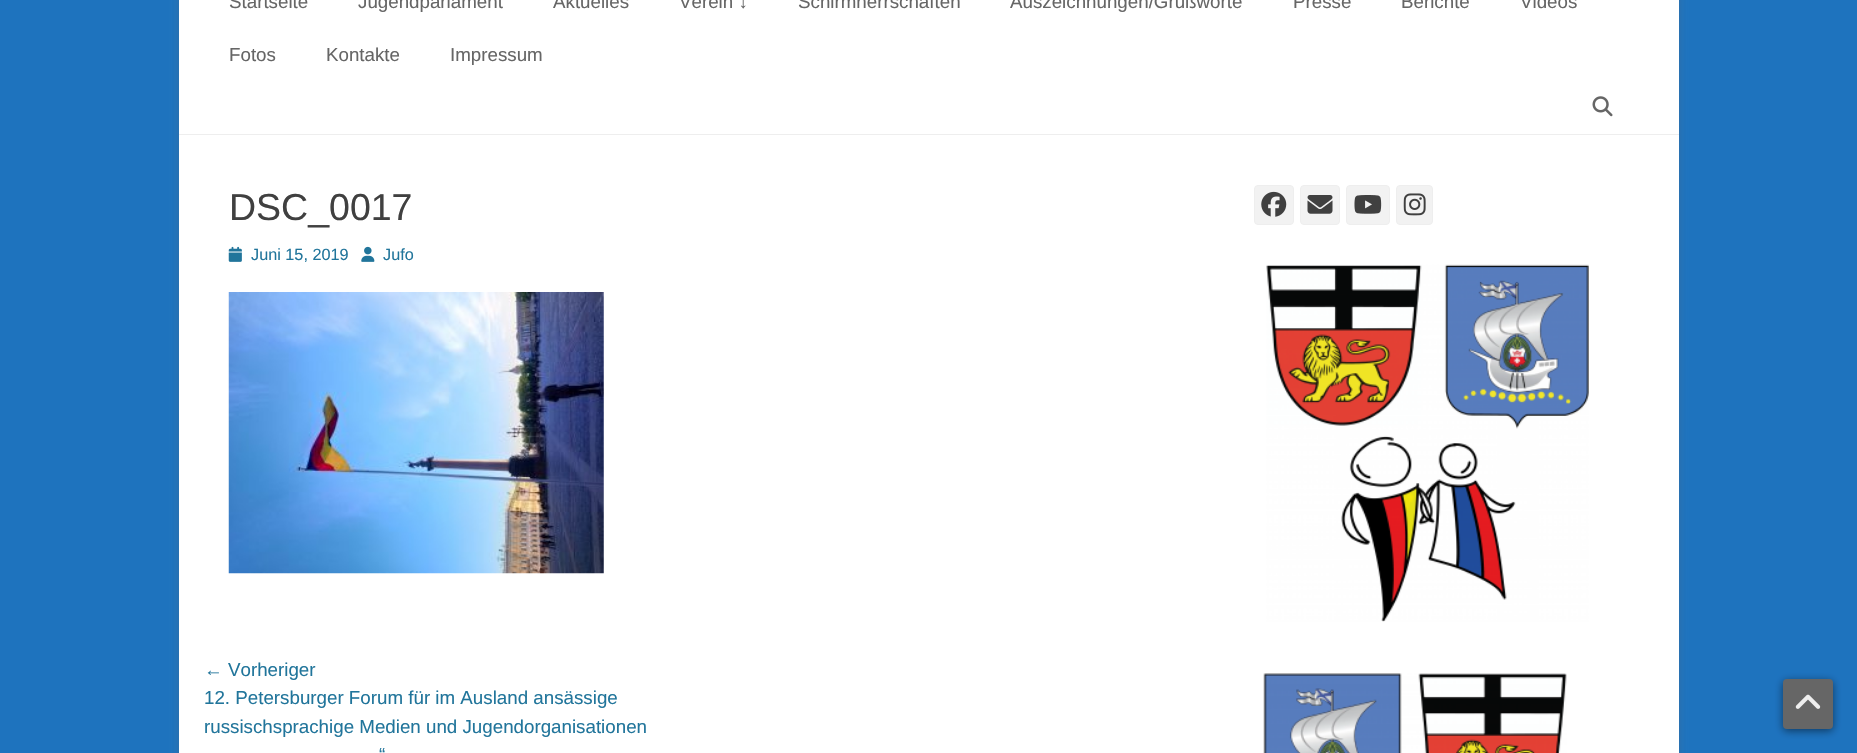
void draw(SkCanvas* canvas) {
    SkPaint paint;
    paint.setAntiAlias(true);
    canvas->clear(0xFF1E73BE);
    paint.setColor(0x4D646464);
    paint.setMaskFilter(SkMaskFilter::MakeBlur(kNormal_SkBlurStyle, 4));
    canvas->drawRoundRect(SkRect::MakeXYWH(179, -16, 1500, 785), 4, 4, paint);
    paint.setMaskFilter(nullptr);
    paint.setColor(0xFFFFFFFF);
    canvas->drawRect(SkRect::MakeXYWH(179, 0, 1500, 753), paint);
    paint.setColor(0xFFEEEEEE);
    canvas->drawRect(SkRect::MakeXYWH(179, 134, 1500, 1), paint);
    SkFont font1(fontMgr->matchFamilyStyle("Liberation Sans", SkFontStyle::Normal()), 18.75f);
    font1.setSubpixel(true);
    paint.setColor(0xFF666666);
    canvas->drawString("Startseite", 229, 8, font1, paint);
    canvas->drawString("Jugendparlament", 358, 8, font1, paint);
    canvas->drawString("Aktuelles", 553, 8, font1, paint);
    canvas->drawString("Verein ↓", 679, 8, font1, paint);
    canvas->drawString("Schirmherrschaften", 798, 8, font1, paint);
    canvas->drawString("Auszeichnungen/Grußworte", 1010, 8, font1, paint);
    canvas->drawString("Presse", 1293, 8, font1, paint);
    canvas->drawString("Berichte", 1401, 8, font1, paint);
    canvas->drawString("Videos", 1520, 8, font1, paint);
    canvas->drawString("Fotos", 229, 61, font1, paint);
    canvas->drawString("Kontakte", 326, 61, font1, paint);
    canvas->drawString("Impressum", 450, 61, font1, paint);
    canvas->drawImageRect(SkImages::DeferredFromEncodedData(SkData::MakeFromFileName("img1.png")), SkRect::MakeXYWH(1592, 96, 21, 21), SkSamplingOptions());
    SkFont font2(fontMgr->matchFamilyStyle("Liberation Sans", SkFontStyle::Normal()), 37.5f);
    font2.setSubpixel(true);
    paint.setColor(0xFF404040);
    canvas->drawString("DSC_0017", 229, 220, font2, paint);
    canvas->drawImageRect(SkImages::DeferredFromEncodedData(SkData::MakeFromFileName("img2.png")), SkRect::MakeXYWH(228, 246, 14, 16), SkSamplingOptions());
    SkFont font3(fontMgr->matchFamilyStyle("Liberation Sans", SkFontStyle::Normal()), 16.25f);
    font3.setSubpixel(true);
    paint.setColor(0xFF21759B);
    canvas->drawString("Juni 15, 2019", 251, 260, font3, paint);
    canvas->drawImageRect(SkImages::DeferredFromEncodedData(SkData::MakeFromFileName("img3.png")), SkRect::MakeXYWH(361, 246, 14, 16), SkSamplingOptions());
    canvas->drawString("Jufo", 383, 260, font3, paint);
    canvas->drawImageRect(SkImages::DeferredFromEncodedData(SkData::MakeFromFileName("img4.png")), SkRect::MakeXYWH(228, 292, 376, 282), SkSamplingOptions());
    canvas->drawString("← Vorheriger", 204, 676, font1, paint);
    canvas->drawString("12. Petersburger Forum für im Ausland ansässige", 204, 704, font1, paint);
    canvas->drawString("russischsprachige Medien und Jugendorganisationen", 204, 733, font1, paint);
    canvas->drawString("“", 379, 761, font1, paint);
    paint.setColor(0xFFF2F2F2);
    canvas->drawRoundRect(SkRect::MakeXYWH(1254.5f, 185.5f, 39, 39), 3.5f, 3.5f, paint);
    paint.setStyle(SkPaint::kStroke_Style);
    paint.setStrokeWidth(1);
    paint.setColor(0xFFEEEEEE);
    canvas->drawRoundRect(SkRect::MakeXYWH(1254.5f, 185.5f, 39, 39), 3.5f, 3.5f, paint);
    canvas->drawImageRect(SkImages::DeferredFromEncodedData(SkData::MakeFromFileName("img5.png")), SkRect::MakeXYWH(1261, 191, 26, 26), SkSamplingOptions());
    paint.setStyle(SkPaint::kFill_Style);
    paint.setColor(0xFFF2F2F2);
    canvas->drawRoundRect(SkRect::MakeXYWH(1300.5f, 185.5f, 39, 39), 3.5f, 3.5f, paint);
    paint.setStyle(SkPaint::kStroke_Style);
    paint.setColor(0xFFEEEEEE);
    canvas->drawRoundRect(SkRect::MakeXYWH(1300.5f, 185.5f, 39, 39), 3.5f, 3.5f, paint);
    canvas->drawImageRect(SkImages::DeferredFromEncodedData(SkData::MakeFromFileName("img6.png")), SkRect::MakeXYWH(1307, 195, 26, 19), SkSamplingOptions());
    paint.setStyle(SkPaint::kFill_Style);
    paint.setColor(0xFFF2F2F2);
    canvas->drawRoundRect(SkRect::MakeXYWH(1346.5f, 185.5f, 43, 39), 3.5f, 3.5f, paint);
    paint.setStyle(SkPaint::kStroke_Style);
    paint.setColor(0xFFEEEEEE);
    canvas->drawRoundRect(SkRect::MakeXYWH(1346.5f, 185.5f, 43, 39), 3.5f, 3.5f, paint);
    canvas->drawImageRect(SkImages::DeferredFromEncodedData(SkData::MakeFromFileName("img7.png")), SkRect::MakeXYWH(1354, 195, 28, 19), SkSamplingOptions());
    paint.setStyle(SkPaint::kFill_Style);
    paint.setColor(0xFFF2F2F2);
    canvas->drawRoundRect(SkRect::MakeXYWH(1396.5f, 185.5f, 36, 39), 3.5f, 3.5f, paint);
    paint.setStyle(SkPaint::kStroke_Style);
    paint.setColor(0xFFEEEEEE);
    canvas->drawRoundRect(SkRect::MakeXYWH(1396.5f, 185.5f, 36, 39), 3.5f, 3.5f, paint);
    canvas->drawImageRect(SkImages::DeferredFromEncodedData(SkData::MakeFromFileName("img8.png")), SkRect::MakeXYWH(1403, 193, 23, 23), SkSamplingOptions());
    canvas->drawImageRect(SkImages::DeferredFromEncodedData(SkData::MakeFromFileName("img9.png")), SkRect::MakeXYWH(1266, 264, 323, 358), SkSamplingOptions());
    canvas->drawImageRect(SkImages::DeferredFromEncodedData(SkData::MakeFromFileName("img10.png")), SkRect::MakeXYWH(1263, 673, 304, 80), SkSamplingOptions());
    paint.setStyle(SkPaint::kFill_Style);
    paint.setColor(0x80000001);
    paint.setMaskFilter(SkMaskFilter::MakeBlur(kNormal_SkBlurStyle, 4));
    canvas->drawRoundRect(SkRect::MakeXYWH(1783, 681, 50, 50), 4, 4, paint);
    paint.setMaskFilter(nullptr);
    paint.setColor(0xFF666666);
    canvas->drawRoundRect(SkRect::MakeXYWH(1783, 679, 50, 50), 4, 4, paint);
    canvas->drawImageRect(SkImages::DeferredFromEncodedData(SkData::MakeFromFileName("img11.png")), SkRect::MakeXYWH(1795, 694, 26, 15), SkSamplingOptions());
}
